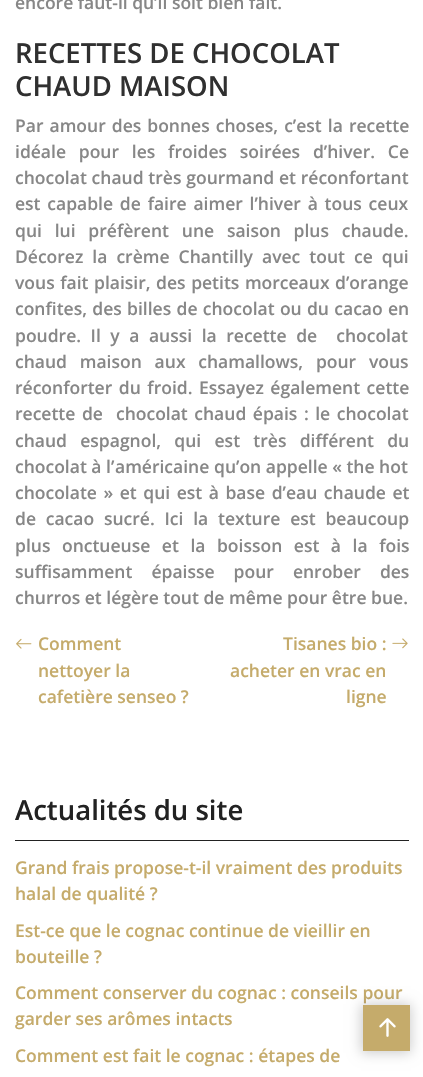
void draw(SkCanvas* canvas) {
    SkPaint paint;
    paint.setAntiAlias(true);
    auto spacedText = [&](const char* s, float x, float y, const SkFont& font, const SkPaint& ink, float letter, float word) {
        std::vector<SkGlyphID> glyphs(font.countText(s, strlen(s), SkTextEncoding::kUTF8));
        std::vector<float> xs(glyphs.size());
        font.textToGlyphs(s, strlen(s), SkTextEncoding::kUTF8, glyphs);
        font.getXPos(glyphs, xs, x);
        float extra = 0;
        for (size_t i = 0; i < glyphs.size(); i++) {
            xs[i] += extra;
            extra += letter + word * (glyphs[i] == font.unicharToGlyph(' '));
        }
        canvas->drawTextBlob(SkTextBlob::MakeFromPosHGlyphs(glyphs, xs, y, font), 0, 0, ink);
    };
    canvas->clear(0xFFFFFFFF);
    SkFont font1(fontMgr->matchFamilyStyle("Open Sans", SkFontStyle(600, SkFontStyle::kNormal_Width, SkFontStyle::kUpright_Slant)), 17.5f);
    font1.setSubpixel(true);
    paint.setColor(0xFF878787);
    canvas->drawString("encore faut-il qu’il soit bien fait.", 15, 9, font1, paint);
    SkFont font2(fontMgr->matchFamilyStyle("Open Sans", SkFontStyle(600, SkFontStyle::kNormal_Width, SkFontStyle::kUpright_Slant)), 27.5f);
    font2.setSubpixel(true);
    paint.setColor(0xFF303030);
    canvas->drawString("RECETTES DE CHOCOLAT", 15, 63, font2, paint);
    canvas->drawString("CHAUD MAISON", 15, 96, font2, paint);
    paint.setColor(0xFF878787);
    spacedText("Par amour des bonnes choses, c’est la recette", 15, 132, font1, paint, 0, 1.5f);
    spacedText("idéale pour les froides soirées d’hiver. Ce", 15, 158, font1, paint, 0, 8.25f);
    spacedText("chocolat chaud très gourmand et réconfortant", 15, 184, font1, paint, 0, 0.25f);
    spacedText("est capable de faire aimer l’hiver à tous ceux", 15, 210, font1, paint, 0, 2.25f);
    spacedText("qui lui préfèrent une saison plus chaude.", 15, 237, font1, paint, 0, 8.25f);
    spacedText("Décorez la crème Chantilly avec tout ce qui", 15, 263, font1, paint, 0, 4.5f);
    spacedText("vous fait plaisir, des petits morceaux d’orange", 15, 289, font1, paint, 0, 1);
    spacedText("confites, des billes de chocolat ou du cacao en", 15, 315, font1, paint, 0, 0.75f);
    spacedText("poudre. Il y a aussi la recette de  chocolat", 15, 342, font1, paint, 0, 5);
    spacedText("chaud maison aux chamallows, pour vous", 15, 368, font1, paint, 0, 8.25f);
    spacedText("réconforter du froid. Essayez également cette", 15, 394, font1, paint, 0, 2);
    spacedText("recette de  chocolat chaud épais : le chocolat", 15, 420, font1, paint, 0, 2);
    spacedText("chaud espagnol, qui est très différent du", 15, 447, font1, paint, 0, 8.75f);
    canvas->drawString("chocolat à l’", 15, 473, font1, paint);
    canvas->drawString("américaine", 115, 473, font1, paint);
    canvas->drawString("qu’on appelle « the hot", 214, 473, font1, paint);
    spacedText("chocolate » et qui est à base d’eau chaude et", 15, 499, font1, paint, 0, 2);
    spacedText("de cacao sucré. Ici la texture est beaucoup", 15, 525, font1, paint, 0, 5.25f);
    spacedText("plus onctueuse et la boisson est à la fois", 15, 552, font1, paint, 0, 7);
    spacedText("suffisamment épaisse pour enrober des", 15, 578, font1, paint, 0, 14.5f);
    canvas->drawString("churros et légère tout de même pour être bue.", 15, 604, font1, paint);
    canvas->drawImageRect(SkImages::DeferredFromEncodedData(SkData::MakeFromFileName("img1.png")), SkRect::MakeXYWH(16, 638, 16, 11), SkSamplingOptions());
    paint.setColor(0xFFC5AB6B);
    canvas->drawString("Comment", 38, 650, font1, paint);
    canvas->drawString("nettoyer la", 38, 677, font1, paint);
    canvas->drawString("cafetière senseo ?", 38, 703, font1, paint);
    canvas->drawString("Tisanes bio :", 283, 650, font1, paint);
    canvas->drawImageRect(SkImages::DeferredFromEncodedData(SkData::MakeFromFileName("img2.png")), SkRect::MakeXYWH(392, 638, 16, 11), SkSamplingOptions());
    canvas->drawString("acheter en vrac en", 230, 677, font1, paint);
    canvas->drawString("ligne", 346, 703, font1, paint);
    paint.setColor(0xFF222222);
    canvas->drawRect(SkRect::MakeXYWH(15, 840, 394, 1), paint);
    canvas->drawString("Actualités du site", 15, 820, font2, paint);
    paint.setColor(0xFFC5AB6B);
    canvas->drawString("Grand frais propose-t-il vraiment des produits", 15, 874, font1, paint);
    canvas->drawString("halal de qualité ?", 15, 900, font1, paint);
    canvas->drawString("Est-ce que le cognac continue de vieillir en", 15, 937, font1, paint);
    canvas->drawString("bouteille ?", 15, 963, font1, paint);
    canvas->drawString("Comment conserver du cognac : conseils pour", 15, 999, font1, paint);
    canvas->drawString("garder ses arômes intacts", 15, 1025, font1, paint);
    canvas->drawString("Comment est fait le cognac : étapes de", 15, 1062, font1, paint);
    paint.setColor(0x33000000);
    paint.setMaskFilter(SkMaskFilter::MakeBlur(kNormal_SkBlurStyle, 6));
    canvas->drawRect(SkRect::MakeXYWH(361, 1004, 50, 49), paint);
    paint.setMaskFilter(nullptr);
    paint.setColor(0xFFC5AB6B);
    canvas->drawRect(SkRect::MakeXYWH(363, 1005, 47, 46), paint);
    canvas->drawImageRect(SkImages::DeferredFromEncodedData(SkData::MakeFromFileName("img3.png")), SkRect::MakeXYWH(379, 1018, 17, 19), SkSamplingOptions());
}
